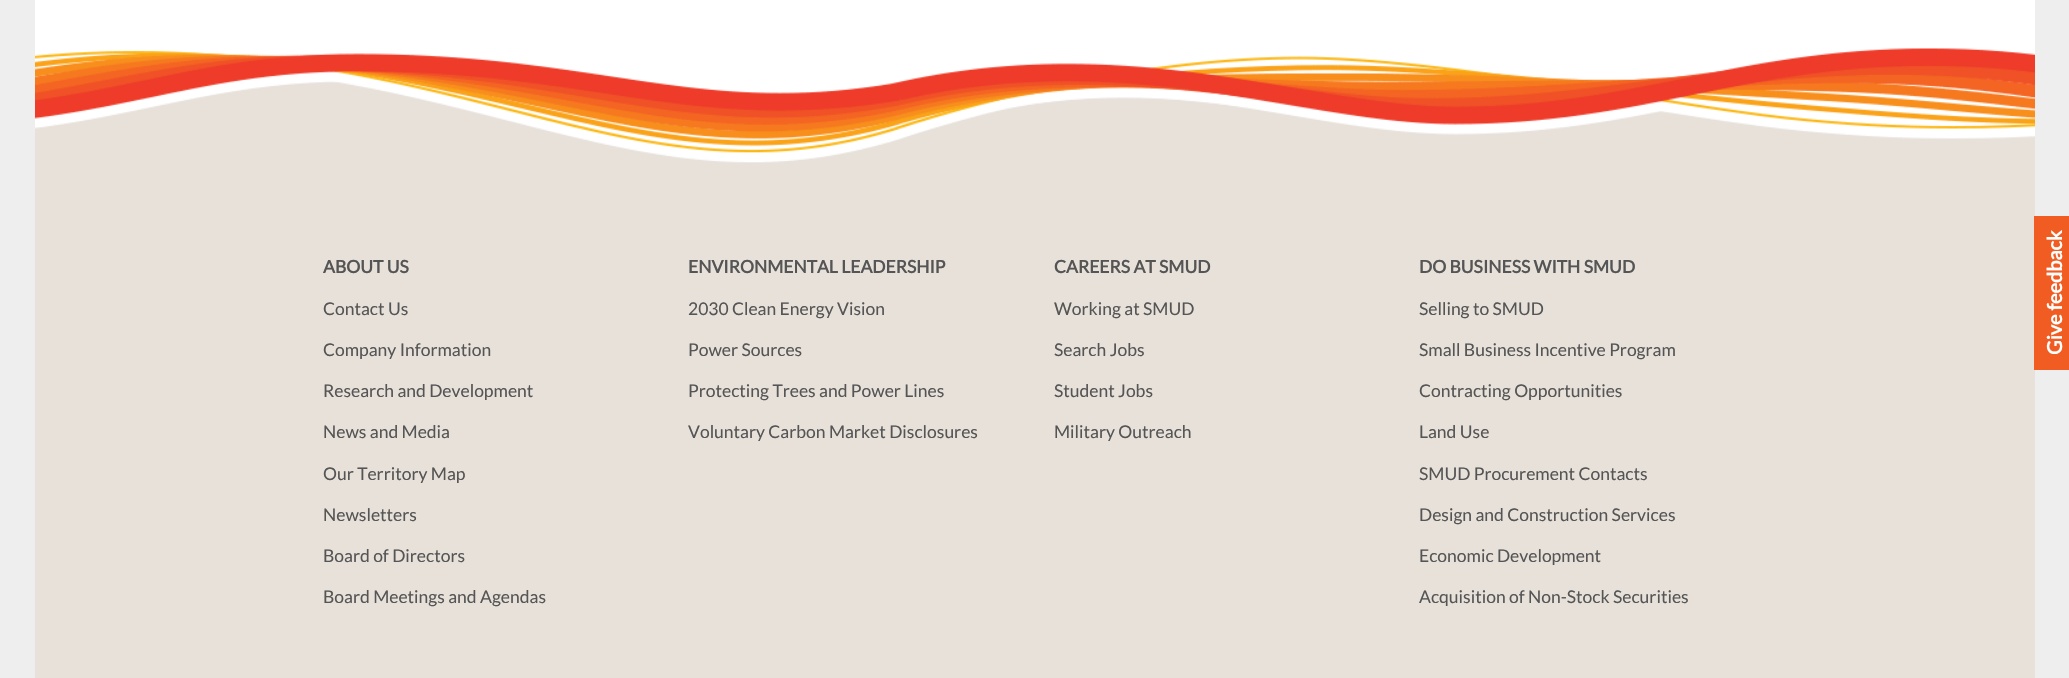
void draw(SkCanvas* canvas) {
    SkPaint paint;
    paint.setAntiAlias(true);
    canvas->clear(0xFFEEEEEE);
    paint.setColor(0xFFFFFFFF);
    canvas->drawRect(SkRect::MakeXYWH(35, 0, 2000, 83), paint);
    canvas->drawImageRect(SkImages::DeferredFromEncodedData(SkData::MakeFromFileName("img1.png")), SkRect::MakeXYWH(35, 48, 2000, 115), SkSamplingOptions());
    paint.setColor(0xFFE7E1DA);
    canvas->drawRect(SkRect::MakeXYWH(35, 163, 2000, 515), paint);
    SkFont font1(fontMgr->matchFamilyStyle("Lato", SkFontStyle::Bold()), 17.5f);
    font1.setSubpixel(true);
    paint.setColor(0xFF555555);
    canvas->drawString("ABOUT US", 323, 273, font1, paint);
    SkFont font2(fontMgr->matchFamilyStyle("Lato", SkFontStyle::Normal()), 17.5f);
    font2.setSubpixel(true);
    canvas->drawString("Contact Us", 323, 315, font2, paint);
    canvas->drawString("Company Information", 323, 356, font2, paint);
    canvas->drawString("Research and Development", 323, 397, font2, paint);
    canvas->drawString("News and Media", 323, 438, font2, paint);
    canvas->drawString("Our Territory Map", 323, 480, font2, paint);
    canvas->drawString("Newsletters", 323, 521, font2, paint);
    canvas->drawString("Board of Directors", 323, 562, font2, paint);
    canvas->drawString("Board Meetings and Agendas", 323, 603, font2, paint);
    canvas->drawString("ENVIRONMENTAL LEADERSHIP", 688, 273, font1, paint);
    canvas->drawString("2030 Clean Energy Vision", 688, 315, font2, paint);
    canvas->drawString("Power Sources", 688, 356, font2, paint);
    canvas->drawString("Protecting Trees and Power Lines", 688, 397, font2, paint);
    canvas->drawString("Voluntary Carbon Market Disclosures", 688, 438, font2, paint);
    canvas->drawString("CAREERS AT SMUD", 1054, 273, font1, paint);
    canvas->drawString("Working at SMUD", 1054, 315, font2, paint);
    canvas->drawString("Search Jobs", 1054, 356, font2, paint);
    canvas->drawString("Student Jobs", 1054, 397, font2, paint);
    canvas->drawString("Military Outreach", 1054, 438, font2, paint);
    canvas->drawString("DO BUSINESS WITH SMUD", 1419, 273, font1, paint);
    canvas->drawString("Selling to SMUD", 1419, 315, font2, paint);
    canvas->drawString("Small Business Incentive Program", 1419, 356, font2, paint);
    canvas->drawString("Contracting Opportunities", 1419, 397, font2, paint);
    canvas->drawString("Land Use", 1419, 438, font2, paint);
    canvas->drawString("SMUD Procurement Contacts", 1419, 480, font2, paint);
    canvas->drawString("Design and Construction Services", 1419, 521, font2, paint);
    canvas->drawString("Economic Development", 1419, 562, font2, paint);
    canvas->drawString("Acquisition of Non-Stock Securities", 1419, 603, font2, paint);
    paint.setColor(0xFFF15C22);
    canvas->drawRect(SkRect::MakeXYWH(2034, 216, 35, 154), paint);
    SkFont font3(fontMgr->matchFamilyStyle("Lato", SkFontStyle::Bold()), 20);
    font3.setSubpixel(true);
    paint.setColor(0xFFFFFFFF);
    canvas->save();
    canvas->rotate(-90, 2062, 355);
    canvas->drawString("Give feedback", 2062, 355, font3, paint);
    canvas->restore();
}
